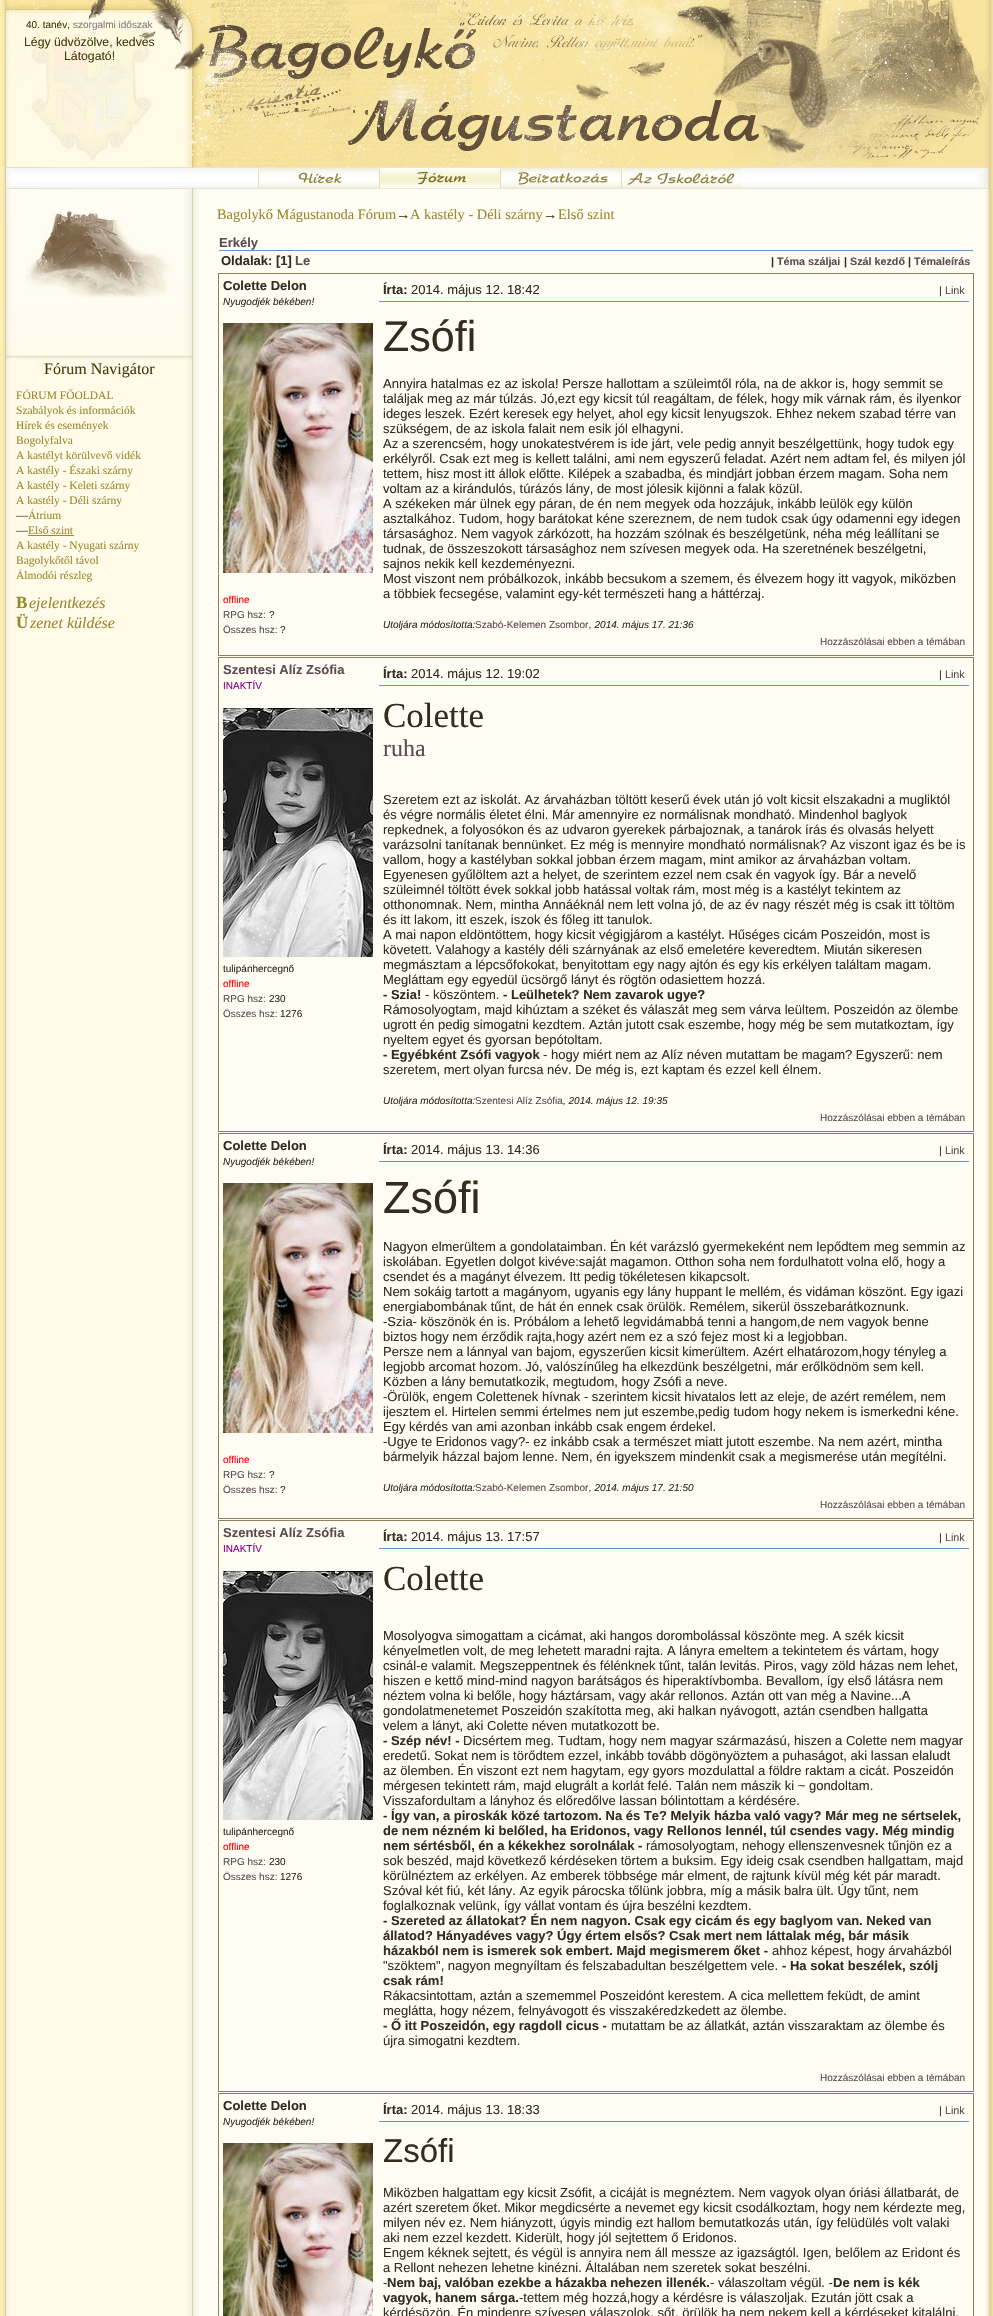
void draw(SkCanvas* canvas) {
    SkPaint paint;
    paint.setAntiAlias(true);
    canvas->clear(0xFFFEEEAF);
    canvas->drawImageRect(SkImages::DeferredFromEncodedData(SkData::MakeFromFileName("img1.png")), SkRect::MakeXYWH(3, 0, 990, 2316), SkSamplingOptions());
    canvas->drawImageRect(SkImages::DeferredFromEncodedData(SkData::MakeFromFileName("img2.png")), SkRect::MakeXYWH(2, 0, 987, 167), SkSamplingOptions());
    SkFont font1(fontMgr->matchFamilyStyle("Liberation Sans", SkFontStyle::Normal()), 10);
    font1.setSubpixel(true);
    paint.setColor(0xFF433C0D);
    canvas->drawString("40. tanév,", 26, 28, font1, paint);
    paint.setColor(0xFF808080);
    canvas->drawString("szorgalmi időszak", 73, 28, font1, paint);
    SkFont font2(fontMgr->matchFamilyStyle("Liberation Sans", SkFontStyle::Normal()), 12.25f);
    font2.setSubpixel(true);
    paint.setColor(0xFF433C0D);
    canvas->drawString("Légy üdvözölve, kedves", 24, 46, font2, paint);
    canvas->drawString("Látogató!", 64, 60, font2, paint);
    canvas->drawImageRect(SkImages::DeferredFromEncodedData(SkData::MakeFromFileName("img3.png")), SkRect::MakeXYWH(5, 167, 984, 22), SkSamplingOptions());
    paint.setColor(0xFFE6DEB7);
    canvas->drawRect(SkRect::MakeXYWH(258, 169, 1, 19), paint);
    canvas->drawImageRect(SkImages::DeferredFromEncodedData(SkData::MakeFromFileName("img4.png")), SkRect::MakeXYWH(259, 168, 120, 20), SkSamplingOptions());
    canvas->drawRect(SkRect::MakeXYWH(379, 169, 1, 19), paint);
    canvas->drawImageRect(SkImages::DeferredFromEncodedData(SkData::MakeFromFileName("img5.png")), SkRect::MakeXYWH(380, 168, 120, 20), SkSamplingOptions());
    canvas->drawRect(SkRect::MakeXYWH(500, 169, 1, 19), paint);
    canvas->drawImageRect(SkImages::DeferredFromEncodedData(SkData::MakeFromFileName("img6.png")), SkRect::MakeXYWH(501, 168, 120, 20), SkSamplingOptions());
    canvas->drawRect(SkRect::MakeXYWH(621, 169, 1, 19), paint);
    canvas->drawImageRect(SkImages::DeferredFromEncodedData(SkData::MakeFromFileName("img7.png")), SkRect::MakeXYWH(622, 168, 120, 20), SkSamplingOptions());
    canvas->drawImageRect(SkImages::DeferredFromEncodedData(SkData::MakeFromFileName("img8.png")), SkRect::MakeXYWH(6, 190, 186, 170), SkSamplingOptions());
    canvas->drawImageRect(SkImages::DeferredFromEncodedData(SkData::MakeFromFileName("img9.png")), SkRect::MakeXYWH(25, 211, 151, 87), SkSamplingOptions());
    SkFont font3(fontMgr->matchFamilyStyle("Liberation Serif", SkFontStyle::Normal()), 16);
    font3.setSubpixel(true);
    paint.setColor(0xFF433C0D);
    canvas->drawString("Fórum Navigátor", 44, 374, font3, paint);
    SkFont font4(fontMgr->matchFamilyStyle("Liberation Serif", SkFontStyle::Normal()), 11.5f);
    font4.setSubpixel(true);
    paint.setColor(0xFF978830);
    canvas->drawString("FÓRUM FŐOLDAL", 16, 399, font4, paint);
    canvas->drawString("Szabályok és információk", 16, 414, font4, paint);
    canvas->drawString("Hírek és események", 16, 429, font4, paint);
    canvas->drawString("Bogolyfalva", 16, 444, font4, paint);
    canvas->drawString("A kastélyt körülvevő vidék", 16, 459, font4, paint);
    canvas->drawString("A kastély - Északi szárny", 16, 474, font4, paint);
    canvas->drawString("A kastély - Keleti szárny", 16, 489, font4, paint);
    canvas->drawString("A kastély - Déli szárny", 16, 504, font4, paint);
    SkFont font5(fontMgr->matchFamilyStyle("Liberation Serif", SkFontStyle::Normal()), 12);
    font5.setSubpixel(true);
    paint.setColor(0xFF433C0D);
    canvas->drawString("—", 16, 519, font5, paint);
    paint.setColor(0xFF978830);
    canvas->drawString("Átrium", 28, 519, font4, paint);
    paint.setColor(0xFF433C0D);
    canvas->drawString("—", 16, 534, font5, paint);
    paint.setColor(0xFF978830);
    canvas->drawString("Első szint", 28, 534, font4, paint);
    canvas->drawRect(SkRect::MakeXYWH(28, 535, 46, 1), paint);
    canvas->drawString("A kastély - Nyugati szárny", 16, 549, font4, paint);
    canvas->drawString("Bagolykőtől távol", 16, 564, font4, paint);
    canvas->drawString("Álmodói részleg", 16, 579, font4, paint);
    SkFont font6(fontMgr->matchFamilyStyle("Liberation Serif", SkFontStyle::Bold()), 17);
    font6.setSubpixel(true);
    canvas->drawString("B", 16, 608, font6, paint);
    SkFont font7(fontMgr->matchFamilyStyle("Liberation Serif", SkFontStyle::Italic()), 16);
    font7.setSubpixel(true);
    canvas->drawString("ejelentkezés", 29, 608, font7, paint);
    canvas->drawString("Ü", 16, 628, font6, paint);
    canvas->drawString("zenet küldése", 30, 628, font7, paint);
    SkFont font8(fontMgr->matchFamilyStyle("Liberation Serif", SkFontStyle::Normal()), 14.4f);
    font8.setSubpixel(true);
    canvas->drawString("Bagolykő Mágustanoda Fórum", 217, 219, font8, paint);
    paint.setColor(0xFF433C0D);
    canvas->drawString("→", 396, 219, font8, paint);
    paint.setColor(0xFF978830);
    canvas->drawString("A kastély - Déli szárny", 410, 219, font8, paint);
    paint.setColor(0xFF433C0D);
    canvas->drawString("→", 543, 219, font8, paint);
    paint.setColor(0xFF978830);
    canvas->drawString("Első szint", 558, 219, font8, paint);
    SkFont font9(fontMgr->matchFamilyStyle("Liberation Sans", SkFontStyle::Bold()), 13);
    font9.setSubpixel(true);
    paint.setColor(0xFF5C4C52);
    canvas->drawString("Erkély", 219, 247, font9, paint);
    paint.setColor(0xFF6394BD);
    canvas->drawRect(SkRect::MakeXYWH(219, 250, 754, 1), paint);
    paint.setColor(0xFF352C20);
    canvas->drawString("Oldalak: [1]", 221, 265, font9, paint);
    paint.setColor(0xFF5C4C52);
    canvas->drawString("Le", 295, 265, font9, paint);
    SkFont font10(fontMgr->matchFamilyStyle("Liberation Sans", SkFontStyle::Bold()), 10.75f);
    font10.setSubpixel(true);
    paint.setColor(0xFF352C20);
    canvas->drawString("|", 771, 265, font10, paint);
    paint.setColor(0xFF5C4C52);
    canvas->drawString("Téma száljai", 777, 265, font10, paint);
    paint.setColor(0xFF352C20);
    canvas->drawString("|", 844, 265, font10, paint);
    paint.setColor(0xFF5C4C52);
    canvas->drawString("Szál kezdő", 850, 265, font10, paint);
    paint.setColor(0xFF352C20);
    canvas->drawString("|", 908, 265, font10, paint);
    paint.setColor(0xFF5C4C52);
    canvas->drawString("Témaleírás", 914, 265, font10, paint);
    paint.setStyle(SkPaint::kStroke_Style);
    paint.setStrokeWidth(1);
    paint.setColor(0xFF917F57);
    canvas->drawRect(SkRect::MakeXYWH(218.5f, 273.5f, 755, 382), paint);
    paint.setStyle(SkPaint::kFill_Style);
    paint.setColor(0xFF352C20);
    canvas->drawString("Colette Delon", 223, 290, font9, paint);
    SkFont font11(fontMgr->matchFamilyStyle("Liberation Sans", SkFontStyle::Italic()), 10);
    font11.setSubpixel(true);
    canvas->drawString("Nyugodjék békében!", 223, 305, font11, paint);
    canvas->drawImageRect(SkImages::DeferredFromEncodedData(SkData::MakeFromFileName("img10.png")), SkRect::MakeXYWH(223, 323, 150, 250), SkSamplingOptions());
    paint.setColor(0xFFFF0000);
    canvas->drawString("offline", 223, 603, font1, paint);
    paint.setColor(0xFF5C4C52);
    canvas->drawString("RPG hsz:", 223, 618, font1, paint);
    paint.setColor(0xFF352C20);
    canvas->drawString("?", 269, 618, font1, paint);
    paint.setColor(0xFF5C4C52);
    canvas->drawString("Összes hsz:", 223, 633, font1, paint);
    paint.setColor(0xFF352C20);
    canvas->drawString("?", 280, 633, font1, paint);
    canvas->drawString("Írta:", 383, 294, font9, paint);
    SkFont font12(fontMgr->matchFamilyStyle("Liberation Sans", SkFontStyle::Normal()), 13);
    font12.setSubpixel(true);
    canvas->drawString("2014. május 12. 18:42", 411, 294, font12, paint);
    SkFont font13(fontMgr->matchFamilyStyle("Liberation Sans", SkFontStyle::Normal()), 10.75f);
    font13.setSubpixel(true);
    canvas->drawString("|", 939, 294, font13, paint);
    paint.setColor(0xFF5C4C52);
    canvas->drawString("Link", 945, 294, font13, paint);
    paint.setColor(0xFF6394BD);
    canvas->drawRect(SkRect::MakeXYWH(379, 301, 590, 1), paint);
    SkFont font14(fontMgr->matchFamilyStyle("Liberation Sans", SkFontStyle::Normal()), 43);
    font14.setSubpixel(true);
    paint.setColor(0xFF352C20);
    canvas->drawString("Zsófi", 383, 351, font14, paint);
    canvas->drawString("Annyira hatalmas ez az iskola! Persze hallottam a szüleimtől róla, na de akkor is, hogy semmit se", 383, 388, font12, paint);
    canvas->drawString("találjak meg az már túlzás. Jó,ezt egy kicsit túl reagáltam, de félek, hogy mik várnak rám, és ilyenkor", 383, 403, font12, paint);
    canvas->drawString("ideges leszek. Ezért keresek egy helyet, ahol egy kicsit lenyugszok. Ehhez nekem szabad térre van", 383, 418, font12, paint);
    canvas->drawString("szükségem, de az iskola falait nem esik jól elhagyni.", 383, 433, font12, paint);
    canvas->drawString("Az a szerencsém, hogy unokatestvérem is ide járt, vele pedig annyit beszélgettünk, hogy tudok egy", 383, 448, font12, paint);
    canvas->drawString("erkélyről. Csak ezt meg is kellett találni, ami nem egyszerű feladat. Azért nem adtam fel, és milyen jól", 383, 463, font12, paint);
    canvas->drawString("tettem, hisz most itt állok előtte. Kilépek a szabadba, és mindjárt jobban érzem magam. Soha nem", 383, 478, font12, paint);
    canvas->drawString("voltam az a kirándulós, túrázós lány, de most jólesik kijönni a falak közül.", 383, 493, font12, paint);
    canvas->drawString("A székeken már ülnek egy páran, de én nem megyek oda hozzájuk, inkább leülök egy külön", 383, 508, font12, paint);
    canvas->drawString("asztalkához. Tudom, hogy barátokat kéne szereznem, de nem tudok csak úgy odamenni egy idegen", 383, 523, font12, paint);
    canvas->drawString("társasághoz. Nem vagyok zárkózott, ha hozzám szólnak és beszélgetünk, néha még leállítani se", 383, 538, font12, paint);
    canvas->drawString("tudnak, de összeszokott társasághoz nem szívesen megyek oda. Ha szeretnének beszélgetni,", 383, 553, font12, paint);
    canvas->drawString("sajnos nekik kell kezdeményezni.", 383, 568, font12, paint);
    canvas->drawString("Most viszont nem próbálkozok, inkább becsukom a szemem, és élvezem hogy itt vagyok, miközben", 383, 583, font12, paint);
    canvas->drawString("a többiek fecsegése, valamint egy-két természeti hang a háttérzaj.", 383, 598, font12, paint);
    canvas->drawString("Utoljára módosította:", 383, 628, font11, paint);
    paint.setColor(0xFF5C4C52);
    canvas->drawString("Szabó-Kelemen Zsombor", 475, 628, font1, paint);
    paint.setColor(0xFF352C20);
    canvas->drawString(", 2014. május 17. 21:36", 589, 628, font11, paint);
    paint.setColor(0xFF5C4C52);
    canvas->drawString("Hozzászólásai ebben a témában", 820, 645, font1, paint);
    paint.setStyle(SkPaint::kStroke_Style);
    paint.setColor(0xFF917F57);
    canvas->drawRect(SkRect::MakeXYWH(218.5f, 657.5f, 755, 474), paint);
    paint.setStyle(SkPaint::kFill_Style);
    paint.setColor(0xFF5C4C52);
    canvas->drawString("Szentesi Alíz Zsófia", 223, 674, font9, paint);
    paint.setColor(0xFF8B008B);
    canvas->drawString("INAKTÍV", 223, 689, font1, paint);
    canvas->drawImageRect(SkImages::DeferredFromEncodedData(SkData::MakeFromFileName("img11.png")), SkRect::MakeXYWH(223, 707, 150, 250), SkSamplingOptions());
    paint.setColor(0xFF352C20);
    canvas->drawString("tulipánhercegnő", 223, 972, font1, paint);
    paint.setColor(0xFFFF0000);
    canvas->drawString("offline", 223, 987, font1, paint);
    paint.setColor(0xFF5C4C52);
    canvas->drawString("RPG hsz:", 223, 1002, font1, paint);
    paint.setColor(0xFF352C20);
    canvas->drawString("230", 269, 1002, font1, paint);
    paint.setColor(0xFF5C4C52);
    canvas->drawString("Összes hsz:", 223, 1017, font1, paint);
    paint.setColor(0xFF352C20);
    canvas->drawString("1276", 280, 1017, font1, paint);
    canvas->drawString("Írta:", 383, 678, font9, paint);
    canvas->drawString("2014. május 12. 19:02", 411, 678, font12, paint);
    canvas->drawString("|", 939, 678, font13, paint);
    paint.setColor(0xFF5C4C52);
    canvas->drawString("Link", 945, 678, font13, paint);
    paint.setColor(0xFF6394BD);
    canvas->drawRect(SkRect::MakeXYWH(379, 685, 590, 1), paint);
    SkFont font15(fontMgr->matchFamilyStyle("Liberation Serif", SkFontStyle::Normal()), 35);
    font15.setSubpixel(true);
    paint.setColor(0xFF352C20);
    canvas->drawString("Colette", 383, 727, font15, paint);
    SkFont font16(fontMgr->matchFamilyStyle("Liberation Serif", SkFontStyle::Normal()), 24);
    font16.setSubpixel(true);
    paint.setColor(0xFF5C4C52);
    canvas->drawString("ruha", 383, 756, font16, paint);
    paint.setColor(0xFF352C20);
    canvas->drawString("Szeretem ezt az iskolát. Az árvaházban töltött keserű évek után jó volt kicsit elszakadni a mugliktól", 383, 804, font12, paint);
    canvas->drawString("és végre normális életet élni. Már amennyire ez normálisnak mondható. Mindenhol baglyok", 383, 819, font12, paint);
    canvas->drawString("repkednek, a folyosókon és az udvaron gyerekek párbajoznak, a tanárok írás és olvasás helyett", 383, 834, font12, paint);
    canvas->drawString("varázsolni tanítanak bennünket. Ez még is mennyire mondható normálisnak? Az viszont igaz és be is", 383, 849, font12, paint);
    canvas->drawString("vallom, hogy a kastélyban sokkal jobban érzem magam, mint amikor az árvaházban voltam.", 383, 864, font12, paint);
    canvas->drawString("Egyenesen gyűlöltem azt a helyet, de szerintem ezzel nem csak én vagyok így. Bár a nevelő", 383, 879, font12, paint);
    canvas->drawString("szüleimnél töltött évek sokkal jobb hatással voltak rám, most még is a kastélyt tekintem az", 383, 894, font12, paint);
    canvas->drawString("otthonomnak. Nem, mintha Annáéknál nem lett volna jó, de az év nagy részét még is csak itt töltöm", 383, 909, font12, paint);
    canvas->drawString("és itt lakom, itt eszek, iszok és főleg itt tanulok.", 383, 924, font12, paint);
    canvas->drawString("A mai napon eldöntöttem, hogy kicsit végigjárom a kastélyt. Hűséges cicám Poszeidón, most is", 383, 939, font12, paint);
    canvas->drawString("követett. Valahogy a kastély déli szárnyának az első emeletére keveredtem. Miután sikeresen", 383, 954, font12, paint);
    canvas->drawString("megmásztam a lépcsőfokokat, benyitottam egy nagy ajtón és egy kis erkélyen találtam magam.", 383, 969, font12, paint);
    canvas->drawString("Megláttam egy egyedül ücsörgő lányt és rögtön odasiettem hozzá.", 383, 984, font12, paint);
    canvas->drawString("- Szia!", 383, 999, font9, paint);
    canvas->drawString("- köszöntem.", 425, 999, font12, paint);
    canvas->drawString("- Leülhetek? Nem zavarok ugye?", 503, 999, font9, paint);
    canvas->drawString("Rámosolyogtam, majd kihúztam a széket és válaszát meg sem várva leültem. Poszeidón az ölembe", 383, 1014, font12, paint);
    canvas->drawString("ugrott én pedig simogatni kezdtem. Aztán jutott csak eszembe, hogy még be sem mutatkoztam, így", 383, 1029, font12, paint);
    canvas->drawString("nyeltem egyet és gyorsan bepótoltam.", 383, 1044, font12, paint);
    canvas->drawString("- Egyébként Zsófi vagyok", 383, 1059, font9, paint);
    canvas->drawString("- hogy miért nem az Alíz néven mutattam be magam? Egyszerű: nem", 543, 1059, font12, paint);
    canvas->drawString("szeretem, mert olyan furcsa név. De még is, ezt kaptam és ezzel kell élnem.", 383, 1074, font12, paint);
    canvas->drawString("Utoljára módosította:", 383, 1104, font11, paint);
    paint.setColor(0xFF5C4C52);
    canvas->drawString("Szentesi Alíz Zsófia", 475, 1104, font1, paint);
    paint.setColor(0xFF352C20);
    canvas->drawString(", 2014. május 12. 19:35", 563, 1104, font11, paint);
    paint.setColor(0xFF5C4C52);
    canvas->drawString("Hozzászólásai ebben a témában", 820, 1121, font1, paint);
    paint.setStyle(SkPaint::kStroke_Style);
    paint.setColor(0xFF917F57);
    canvas->drawRect(SkRect::MakeXYWH(218.5f, 1133.5f, 755, 385), paint);
    paint.setStyle(SkPaint::kFill_Style);
    paint.setColor(0xFF352C20);
    canvas->drawString("Colette Delon", 223, 1150, font9, paint);
    canvas->drawString("Nyugodjék békében!", 223, 1165, font11, paint);
    canvas->drawImageRect(SkImages::DeferredFromEncodedData(SkData::MakeFromFileName("img10.png")), SkRect::MakeXYWH(223, 1183, 150, 250), SkSamplingOptions());
    paint.setColor(0xFFFF0000);
    canvas->drawString("offline", 223, 1463, font1, paint);
    paint.setColor(0xFF5C4C52);
    canvas->drawString("RPG hsz:", 223, 1478, font1, paint);
    paint.setColor(0xFF352C20);
    canvas->drawString("?", 269, 1478, font1, paint);
    paint.setColor(0xFF5C4C52);
    canvas->drawString("Összes hsz:", 223, 1493, font1, paint);
    paint.setColor(0xFF352C20);
    canvas->drawString("?", 280, 1493, font1, paint);
    canvas->drawString("Írta:", 383, 1154, font9, paint);
    canvas->drawString("2014. május 13. 14:36", 411, 1154, font12, paint);
    canvas->drawString("|", 939, 1154, font13, paint);
    paint.setColor(0xFF5C4C52);
    canvas->drawString("Link", 945, 1154, font13, paint);
    paint.setColor(0xFF6394BD);
    canvas->drawRect(SkRect::MakeXYWH(379, 1161, 590, 1), paint);
    SkFont font17(fontMgr->matchFamilyStyle("Liberation Sans", SkFontStyle::Normal()), 45);
    font17.setSubpixel(true);
    paint.setColor(0xFF352C20);
    canvas->drawString("Zsófi", 383, 1213, font17, paint);
    canvas->drawString("Nagyon elmerültem a gondolataimban. Én két varázsló gyermekeként nem lepődtem meg semmin az", 383, 1251, font12, paint);
    canvas->drawString("iskolában. Egyetlen dolgot kivéve:saját magamon. Otthon soha nem fordulhatott volna elő, hogy a", 383, 1266, font12, paint);
    canvas->drawString("csendet és a magányt élvezem. Itt pedig tökéletesen kikapcsolt.", 383, 1281, font12, paint);
    canvas->drawString("Nem sokáig tartott a magányom, ugyanis egy lány huppant le mellém, és vidáman köszönt. Egy igazi", 383, 1296, font12, paint);
    canvas->drawString("energiabombának tűnt, de hát én ennek csak örülök. Remélem, sikerül összebarátkoznunk.", 383, 1311, font12, paint);
    canvas->drawString("-Szia- köszönök én is. Próbálom a lehető legvidámabbá tenni a hangom,de nem vagyok benne", 383, 1326, font12, paint);
    canvas->drawString("biztos hogy nem érződik rajta,hogy azért nem ez a szó fejez most ki a legjobban.", 383, 1341, font12, paint);
    canvas->drawString("Persze nem a lánnyal van bajom, egyszerűen kicsit kimerültem. Azért elhatározom,hogy tényleg a", 383, 1356, font12, paint);
    canvas->drawString("legjobb arcomat hozom. Jó, valószínűleg ha elkezdünk beszélgetni, már erőlködnöm sem kell.", 383, 1371, font12, paint);
    canvas->drawString("Közben a lány bemutatkozik, megtudom, hogy Zsófi a neve.", 383, 1386, font12, paint);
    canvas->drawString("-Örülök, engem Colettenek hívnak - szerintem kicsit hivatalos lett az eleje, de azért remélem, nem", 383, 1401, font12, paint);
    canvas->drawString("ijesztem el. Hirtelen semmi értelmes nem jut eszembe,pedig tudom hogy nekem is ismerkedni kéne.", 383, 1416, font12, paint);
    canvas->drawString("Egy kérdés van ami azonban inkább csak engem érdekel.", 383, 1431, font12, paint);
    canvas->drawString("-Ugye te Eridonos vagy?- ez inkább csak a természet miatt jutott eszembe. Na nem azért, mintha", 383, 1446, font12, paint);
    canvas->drawString("bármelyik házzal bajom lenne. Nem, én igyekszem mindenkit csak a megismerése után megítélni.", 383, 1461, font12, paint);
    canvas->drawString("Utoljára módosította:", 383, 1491, font11, paint);
    paint.setColor(0xFF5C4C52);
    canvas->drawString("Szabó-Kelemen Zsombor", 475, 1491, font1, paint);
    paint.setColor(0xFF352C20);
    canvas->drawString(", 2014. május 17. 21:50", 589, 1491, font11, paint);
    paint.setColor(0xFF5C4C52);
    canvas->drawString("Hozzászólásai ebben a témában", 820, 1508, font1, paint);
    paint.setStyle(SkPaint::kStroke_Style);
    paint.setColor(0xFF917F57);
    canvas->drawRect(SkRect::MakeXYWH(218.5f, 1520.5f, 755, 571), paint);
    paint.setStyle(SkPaint::kFill_Style);
    paint.setColor(0xFF5C4C52);
    canvas->drawString("Szentesi Alíz Zsófia", 223, 1537, font9, paint);
    paint.setColor(0xFF8B008B);
    canvas->drawString("INAKTÍV", 223, 1552, font1, paint);
    canvas->drawImageRect(SkImages::DeferredFromEncodedData(SkData::MakeFromFileName("img11.png")), SkRect::MakeXYWH(223, 1570, 150, 250), SkSamplingOptions());
    paint.setColor(0xFF352C20);
    canvas->drawString("tulipánhercegnő", 223, 1835, font1, paint);
    paint.setColor(0xFFFF0000);
    canvas->drawString("offline", 223, 1850, font1, paint);
    paint.setColor(0xFF5C4C52);
    canvas->drawString("RPG hsz:", 223, 1865, font1, paint);
    paint.setColor(0xFF352C20);
    canvas->drawString("230", 269, 1865, font1, paint);
    paint.setColor(0xFF5C4C52);
    canvas->drawString("Összes hsz:", 223, 1880, font1, paint);
    paint.setColor(0xFF352C20);
    canvas->drawString("1276", 280, 1880, font1, paint);
    canvas->drawString("Írta:", 383, 1541, font9, paint);
    canvas->drawString("2014. május 13. 17:57", 411, 1541, font12, paint);
    canvas->drawString("|", 939, 1541, font13, paint);
    paint.setColor(0xFF5C4C52);
    canvas->drawString("Link", 945, 1541, font13, paint);
    paint.setColor(0xFF6394BD);
    canvas->drawRect(SkRect::MakeXYWH(379, 1548, 590, 1), paint);
    paint.setColor(0xFF352C20);
    canvas->drawString("Colette", 383, 1590, font15, paint);
    canvas->drawString("Mosolyogva simogattam a cicámat, aki hangos dorombolással köszönte meg. A szék kicsit", 383, 1640, font12, paint);
    canvas->drawString("kényelmetlen volt, de meg lehetett maradni rajta. A lányra emeltem a tekintetem és vártam, hogy", 383, 1655, font12, paint);
    canvas->drawString("csinál-e valamit. Megszeppentnek és félénknek tűnt, talán levitás. Piros, vagy zöld házas nem lehet,", 383, 1670, font12, paint);
    canvas->drawString("hiszen e kettő mind-mind nagyon barátságos és hiperaktívbomba. Bevallom, így első látásra nem", 383, 1685, font12, paint);
    canvas->drawString("néztem volna ki belőle, hogy háztársam, vagy akár rellonos. Aztán ott van még a Navine...A", 383, 1700, font12, paint);
    canvas->drawString("gondolatmenetemet Poszeidón szakította meg, aki halkan nyávogott, aztán csendben hallgatta", 383, 1715, font12, paint);
    canvas->drawString("velem a lányt, aki Colette néven mutatkozott be.", 383, 1730, font12, paint);
    canvas->drawString("- Szép név! -", 383, 1745, font9, paint);
    canvas->drawString("Dicsértem meg. Tudtam, hogy nem magyar származású, hiszen a Colette nem magyar", 463, 1745, font12, paint);
    canvas->drawString("eredetű. Sokat nem is törődtem ezzel, inkább tovább dögönyöztem a puhaságot, aki lassan elaludt", 383, 1760, font12, paint);
    canvas->drawString("az ölemben. Én viszont ezt nem hagytam, egy gyors mozdulattal a földre raktam a cicát. Poszeidón", 383, 1775, font12, paint);
    canvas->drawString("mérgesen tekintett rám, majd elugrált a korlát felé. Talán nem mászik ki ~ gondoltam.", 383, 1790, font12, paint);
    canvas->drawString("Visszafordultam a lányhoz és előredőlve lassan bólintottam a kérdésére.", 383, 1805, font12, paint);
    canvas->drawString("- Így van, a piroskák közé tartozom. Na és Te? Melyik házba való vagy? Már meg ne sértselek,", 383, 1820, font9, paint);
    canvas->drawString("de nem nézném ki belőled, ha Eridonos, vagy Rellonos lennél, túl csendes vagy. Még mindig", 383, 1835, font9, paint);
    canvas->drawString("nem sértésből, én a kékekhez sorolnálak -", 383, 1850, font9, paint);
    canvas->drawString("rámosolyogtam, nehogy ellenszenvesnek tűnjön ez a", 646, 1850, font12, paint);
    canvas->drawString("sok beszéd, majd következő kérdéseken törtem a buksim. Egy ideig csak csendben hallgattam, majd", 383, 1865, font12, paint);
    canvas->drawString("körülnéztem az erkélyen. Az emberek többsége már elment, de rajtunk kívül még két pár maradt.", 383, 1880, font12, paint);
    canvas->drawString("Szóval két fiú, két lány. Az egyik párocska tőlünk jobbra, míg a másik balra ült. Úgy tűnt, nem", 383, 1895, font12, paint);
    canvas->drawString("foglalkoznak velünk, így vállat vontam és újra beszélni kezdtem.", 383, 1910, font12, paint);
    canvas->drawString("- Szereted az állatokat? Én nem nagyon. Csak egy cicám és egy baglyom van. Neked van", 383, 1925, font9, paint);
    canvas->drawString("állatod? Hányadéves vagy? Úgy értem elsős? Csak mert nem láttalak még, bár másik", 383, 1940, font9, paint);
    canvas->drawString("házakból nem is ismerek sok embert. Majd megismerem őket -", 383, 1955, font9, paint);
    canvas->drawString("ahhoz képest, hogy árvaházból", 772, 1955, font12, paint);
    canvas->drawString("\"szöktem\", nagyon megnyíltam és felszabadultan beszélgettem vele.", 383, 1970, font12, paint);
    canvas->drawString("- Ha sokat beszélek, szólj", 782, 1970, font9, paint);
    canvas->drawString("csak rám!", 383, 1985, font9, paint);
    canvas->drawString("Rákacsintottam, aztán a szememmel Poszeidónt kerestem. A cica mellettem feküdt, de amint", 383, 2000, font12, paint);
    canvas->drawString("meglátta, hogy nézem, felnyávogott és visszakéredzkedett az ölembe.", 383, 2015, font12, paint);
    canvas->drawString("- Ő itt Poszeidón, egy ragdoll cicus -", 383, 2030, font9, paint);
    canvas->drawString("mutattam be az állatkát, aztán visszaraktam az ölembe és", 611, 2030, font12, paint);
    canvas->drawString("újra simogatni kezdtem.", 383, 2045, font12, paint);
    paint.setColor(0xFF5C4C52);
    canvas->drawString("Hozzászólásai ebben a témában", 820, 2081, font1, paint);
    paint.setStyle(SkPaint::kStroke_Style);
    paint.setColor(0xFF917F57);
    canvas->drawRect(SkRect::MakeXYWH(218.5f, 2093.5f, 755, 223), paint);
    paint.setStyle(SkPaint::kFill_Style);
    paint.setColor(0xFF352C20);
    canvas->drawString("Colette Delon", 223, 2110, font9, paint);
    canvas->drawString("Nyugodjék békében!", 223, 2125, font11, paint);
    canvas->drawImageRect(SkImages::DeferredFromEncodedData(SkData::MakeFromFileName("img12.png")), SkRect::MakeXYWH(223, 2143, 150, 173), SkSamplingOptions());
    canvas->drawString("Írta:", 383, 2114, font9, paint);
    canvas->drawString("2014. május 13. 18:33", 411, 2114, font12, paint);
    canvas->drawString("|", 939, 2114, font13, paint);
    paint.setColor(0xFF5C4C52);
    canvas->drawString("Link", 945, 2114, font13, paint);
    paint.setColor(0xFF6394BD);
    canvas->drawRect(SkRect::MakeXYWH(379, 2121, 590, 1), paint);
    SkFont font18(fontMgr->matchFamilyStyle("Liberation Sans", SkFontStyle::Normal()), 33);
    font18.setSubpixel(true);
    paint.setColor(0xFF352C20);
    canvas->drawString("Zsófi", 383, 2162, font18, paint);
    canvas->drawString("Miközben halgattam egy kicsit Zsófit, a cicáját is megnéztem. Nem vagyok olyan óriási állatbarát, de", 383, 2197, font12, paint);
    canvas->drawString("azért szeretem őket. Mikor megdicsérte a nevemet egy kicsit csodálkoztam, hogy nem kérdezte meg,", 383, 2212, font12, paint);
    canvas->drawString("milyen név ez. Nem hiányzott, úgyis mindig ezt hallom bemutatkozás után, így felüdülés volt valaki", 383, 2227, font12, paint);
    canvas->drawString("aki nem ezzel kezdett. Kiderült, hogy jól sejtettem ő Eridonos.", 383, 2242, font12, paint);
    canvas->drawString("Engem kéknek sejtett, és végül is annyira nem áll messze az igazságtól. Igen, belőlem az Eridont és", 383, 2257, font12, paint);
    canvas->drawString("a Rellont nehezen lehetne kinézni. Általában nem szeretek sokat beszélni.", 383, 2272, font12, paint);
    canvas->drawString("-", 383, 2287, font12, paint);
    canvas->drawString("Nem baj, valóban ezekbe a házakba nehezen illenék.", 387, 2287, font9, paint);
    canvas->drawString("- válaszoltam végül. -", 710, 2287, font12, paint);
    canvas->drawString("De nem is kék", 833, 2287, font9, paint);
    canvas->drawString("vagyok, hanem sárga.", 383, 2302, font9, paint);
    canvas->drawString("-tettem még hozzá,hogy a kérdésre is válaszoljak. Ezután jött csak a", 519, 2302, font12, paint);
    canvas->drawString("kérdésözön. Én mindenre szívesen válaszolok, sőt, örülök ha nem nekem kell a kérdéseket kitalálni.", 383, 2317, font12, paint);
}
